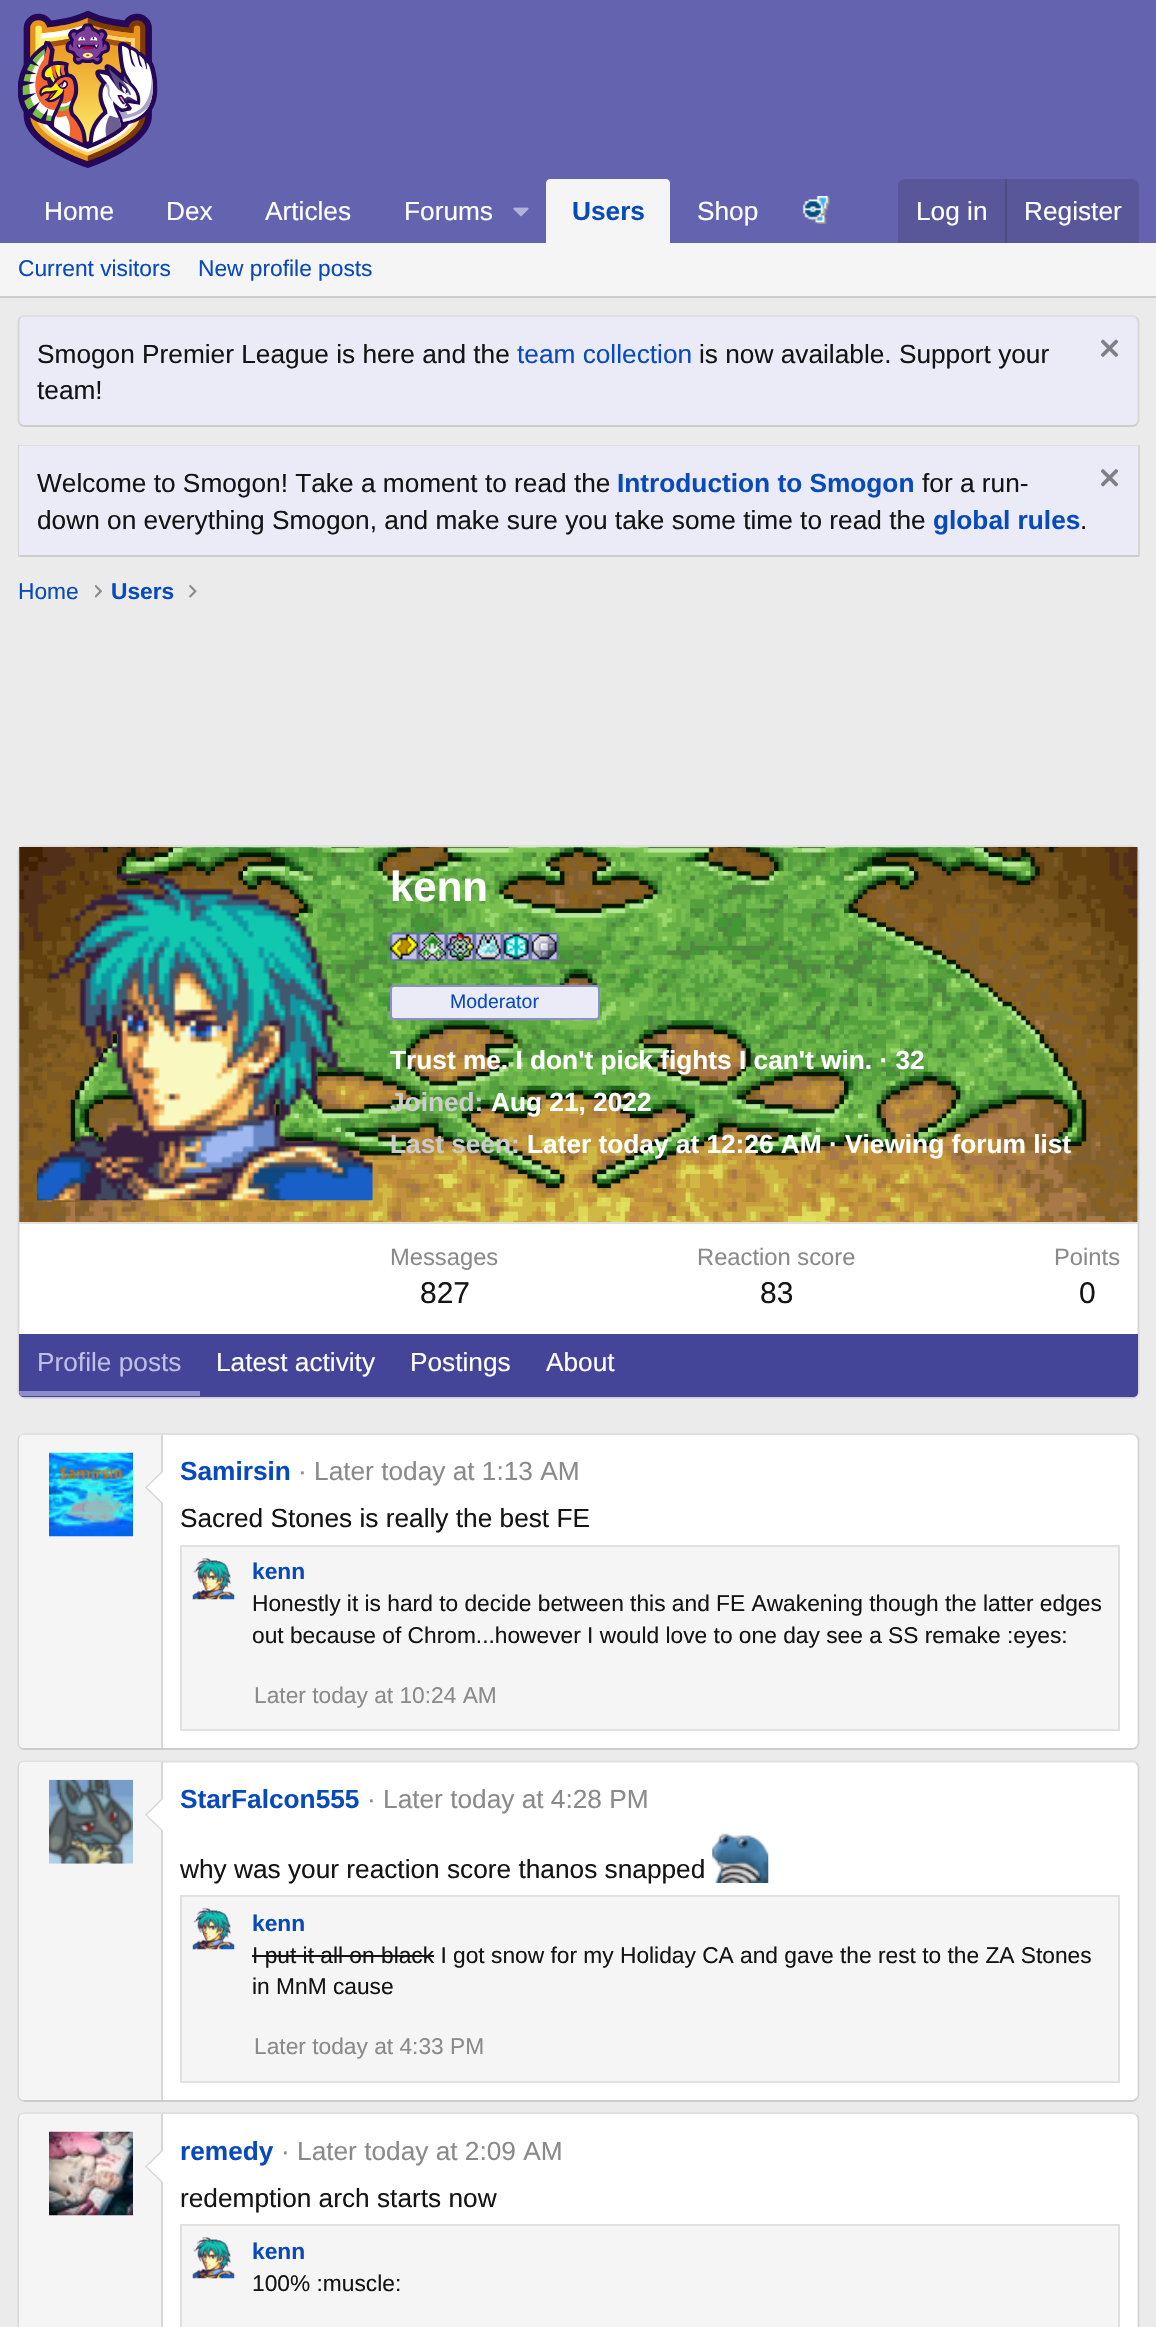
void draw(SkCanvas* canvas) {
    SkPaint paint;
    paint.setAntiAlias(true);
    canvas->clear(0xFFEBEBEB);
    paint.setColor(0xFF6363B0);
    canvas->drawRect(SkRect::MakeXYWH(0, 0, 1156, 243), paint);
    canvas->drawImageRect(SkImages::DeferredFromEncodedData(SkData::MakeFromFileName("img1.png")), SkRect::MakeXYWH(18, 11, 140, 157), SkSamplingOptions());
    SkFont font1(fontMgr->matchFamilyStyle("Liberation Sans", SkFontStyle::Normal()), 26.25f);
    font1.setSubpixel(true);
    paint.setColor(0xFFFFFFFF);
    canvas->drawString("Home", 44, 220, font1, paint);
    canvas->drawString("Dex", 166, 220, font1, paint);
    canvas->drawString("Articles", 265, 220, font1, paint);
    canvas->drawString("Forums", 404, 220, font1, paint);
    canvas->drawImageRect(SkImages::DeferredFromEncodedData(SkData::MakeFromFileName("img2.png")), SkRect::MakeXYWH(513, 207, 16, 10), SkSamplingOptions());
    paint.setColor(0xFFF5F5F5);
    canvas->drawPath(SkPathBuilder().moveTo(550, 179).lineTo(666, 179).cubicTo(668, 179, 670, 181, 670, 183).lineTo(670, 243).lineTo(546, 243).lineTo(546, 183).cubicTo(546, 181, 548, 179, 550, 179).close().detach(), paint);
    SkFont font2(fontMgr->matchFamilyStyle("Liberation Sans", SkFontStyle::Bold()), 26.25f);
    font2.setSubpixel(true);
    paint.setColor(0xFF094ABA);
    canvas->drawString("Users", 572, 220, font2, paint);
    paint.setColor(0xFFFFFFFF);
    canvas->drawString("Shop", 697, 220, font1, paint);
    canvas->drawImageRect(SkImages::DeferredFromEncodedData(SkData::MakeFromFileName("img3.png")), SkRect::MakeXYWH(802, 196, 28, 28), SkSamplingOptions());
    paint.setColor(0xFF575799);
    canvas->drawPath(SkPathBuilder().moveTo(905, 179).lineTo(1132, 179).cubicTo(1136, 179, 1139, 182, 1139, 186).lineTo(1139, 243).lineTo(898, 243).lineTo(898, 186).cubicTo(898, 182, 901, 179, 905, 179).close().detach(), paint);
    paint.setColor(0xFFFFFFFF);
    canvas->drawString("Log in", 916, 220, font1, paint);
    paint.setColor(0xFF4D4D85);
    canvas->drawRect(SkRect::MakeXYWH(1005, 179, 2, 64), paint);
    paint.setColor(0xFFFFFFFF);
    canvas->drawString("Register", 1024, 220, font1, paint);
    paint.setColor(0xFFF5F5F5);
    canvas->drawRect(SkRect::MakeXYWH(0, 243, 1156, 53), paint);
    paint.setColor(0xFFCCCCCC);
    canvas->drawRect(SkRect::MakeXYWH(0, 296, 1156, 2), paint);
    SkFont font3(fontMgr->matchFamilyStyle("Liberation Sans", SkFontStyle::Normal()), 22.75f);
    font3.setSubpixel(true);
    paint.setColor(0xFF094ABA);
    canvas->drawString("Current visitors", 18, 276, font3, paint);
    canvas->drawString("New profile posts", 198, 276, font3, paint);
    paint.setColor(0xFFEBEBF7);
    canvas->drawRoundRect(SkRect::MakeXYWH(18, 315, 1121, 112), 7, 7, paint);
    paint.setStyle(SkPaint::kStroke_Style);
    paint.setStrokeWidth(1.8f);
    paint.setColor(0xFFE0E0E0);
    canvas->drawPath(SkPathBuilder().moveTo(20, 317.5f).cubicTo(21.5f, 316.5f, 23, 316, 24.5f, 316).lineTo(1132, 316).cubicTo(1134, 316, 1135.5f, 316.5f, 1136.5f, 317.5f).detach(), paint);
    paint.setColor(0xFFD6D6D6);
    canvas->drawPath(SkPathBuilder().moveTo(1136.5f, 317.5f).cubicTo(1137.5f, 319, 1138.5f, 320.5f, 1138.5f, 322).lineTo(1138.5f, 420).cubicTo(1138.5f, 421.5f, 1137.5f, 423, 1136.5f, 424.5f).detach(), paint);
    paint.setColor(0xFFCCCCCC);
    canvas->drawPath(SkPathBuilder().moveTo(1136.5f, 424.5f).cubicTo(1135.5f, 425.5f, 1134, 426, 1132, 426).lineTo(24.5f, 426).cubicTo(23, 426, 21.5f, 425.5f, 20, 424.5f).detach(), paint);
    paint.setColor(0xFFD6D6D6);
    canvas->drawPath(SkPathBuilder().moveTo(20, 424.5f).cubicTo(19, 423, 18.5f, 421.5f, 18.5f, 420).lineTo(18.5f, 322).cubicTo(18.5f, 320.5f, 19, 319, 20, 317.5f).detach(), paint);
    paint.setStyle(SkPaint::kFill_Style);
    paint.setColor(0xFF141414);
    canvas->drawString("Smogon Premier League is here and the", 37, 363, font1, paint);
    paint.setColor(0xFF094ABA);
    canvas->drawString("team collection", 517, 363, font1, paint);
    paint.setColor(0xFF141414);
    canvas->drawString("is now available. Support your", 699, 363, font1, paint);
    canvas->drawImageRect(SkImages::DeferredFromEncodedData(SkData::MakeFromFileName("img4.png")), SkRect::MakeXYWH(1101, 339, 17, 18), SkSamplingOptions());
    canvas->drawString("team!", 37, 399, font1, paint);
    paint.setColor(0xFFE0E0E0);
    canvas->drawRect(SkRect::MakeXYWH(18, 445, 1121, 1), paint);
    paint.setColor(0xFFD6D6D6);
    canvas->drawRect(SkRect::MakeXYWH(1138, 445, 2, 112), paint);
    paint.setColor(0xFFCCCCCC);
    canvas->drawRect(SkRect::MakeXYWH(18, 555, 1121, 2), paint);
    paint.setColor(0xFFD6D6D6);
    canvas->drawRect(SkRect::MakeXYWH(18, 445, 2, 112), paint);
    paint.setColor(0xFFEBEBF7);
    canvas->drawRect(SkRect::MakeXYWH(19, 446, 1119, 109), paint);
    paint.setColor(0xFF141414);
    canvas->drawString("Welcome to Smogon! Take a moment to read the", 37, 492, font1, paint);
    paint.setColor(0xFF094ABA);
    canvas->drawString("Introduction to Smogon", 617, 492, font2, paint);
    paint.setColor(0xFF141414);
    canvas->drawString("for a run-", 922, 492, font1, paint);
    canvas->drawImageRect(SkImages::DeferredFromEncodedData(SkData::MakeFromFileName("img5.png")), SkRect::MakeXYWH(1101, 469, 17, 18), SkSamplingOptions());
    canvas->drawString("down on everything Smogon, and make sure you take some time to read the", 37, 529, font1, paint);
    paint.setColor(0xFF094ABA);
    canvas->drawString("global rules", 933, 529, font2, paint);
    paint.setColor(0xFF141414);
    canvas->drawString(".", 1080, 529, font1, paint);
    paint.setColor(0xFF094ABA);
    canvas->drawString("Home", 18, 599, font3, paint);
    canvas->drawImageRect(SkImages::DeferredFromEncodedData(SkData::MakeFromFileName("img6.png")), SkRect::MakeXYWH(95, 585, 7, 13), SkSamplingOptions());
    SkFont font4(fontMgr->matchFamilyStyle("Liberation Sans", SkFontStyle::Bold()), 22.75f);
    font4.setSubpixel(true);
    canvas->drawString("Users", 111, 599, font4, paint);
    canvas->drawImageRect(SkImages::DeferredFromEncodedData(SkData::MakeFromFileName("img7.png")), SkRect::MakeXYWH(189, 584, 8, 14), SkSamplingOptions());
    paint.setColor(0xFFFFFFFF);
    canvas->drawRoundRect(SkRect::MakeXYWH(18, 845, 1121, 553), 7, 7, paint);
    paint.setStyle(SkPaint::kStroke_Style);
    paint.setColor(0xFFE0E0E0);
    canvas->drawPath(SkPathBuilder().moveTo(20, 848).cubicTo(21.5f, 847, 23, 846, 24.5f, 846).lineTo(1132, 846).cubicTo(1134, 846, 1135.5f, 847, 1136.5f, 848).detach(), paint);
    paint.setColor(0xFFD6D6D6);
    canvas->drawPath(SkPathBuilder().moveTo(1136.5f, 848).cubicTo(1137.5f, 849, 1138.5f, 850.5f, 1138.5f, 852).lineTo(1138.5f, 1391).cubicTo(1138.5f, 1393, 1137.5f, 1394.5f, 1136.5f, 1395.5f).detach(), paint);
    paint.setColor(0xFFCCCCCC);
    canvas->drawPath(SkPathBuilder().moveTo(1136.5f, 1395.5f).cubicTo(1135.5f, 1396.5f, 1134, 1397.5f, 1132, 1397.5f).lineTo(24.5f, 1397.5f).cubicTo(23, 1397.5f, 21.5f, 1396.5f, 20, 1395.5f).detach(), paint);
    paint.setColor(0xFFD6D6D6);
    canvas->drawPath(SkPathBuilder().moveTo(20, 1395.5f).cubicTo(19, 1394.5f, 18.5f, 1393, 18.5f, 1391).lineTo(18.5f, 852).cubicTo(18.5f, 850.5f, 19, 849, 20, 848).detach(), paint);
    canvas->drawImageRect(SkImages::DeferredFromEncodedData(SkData::MakeFromFileName("img8.png")), SkRect::MakeXYWH(19, 847, 1119, 375), SkSamplingOptions());
    paint.setStyle(SkPaint::kFill_Style);
    paint.setColor(0xFFE0E0E0);
    canvas->drawRect(SkRect::MakeXYWH(19, 1222, 1119, 2), paint);
    canvas->drawImageRect(SkImages::DeferredFromEncodedData(SkData::MakeFromFileName("img9.png")), SkRect::MakeXYWH(36, 872, 337, 329), SkSamplingOptions());
    SkFont font5(fontMgr->matchFamilyStyle("Liberation Sans", SkFontStyle::Bold()), 42);
    font5.setSubpixel(true);
    paint.setColor(0xFFFFFFFF);
    canvas->drawString("kenn", 390, 901, font5, paint);
    canvas->drawImageRect(SkImages::DeferredFromEncodedData(SkData::MakeFromFileName("img10.png")), SkRect::MakeXYWH(390, 932, 29, 29), SkSamplingOptions());
    canvas->drawImageRect(SkImages::DeferredFromEncodedData(SkData::MakeFromFileName("img11.png")), SkRect::MakeXYWH(418, 932, 29, 29), SkSamplingOptions());
    canvas->drawImageRect(SkImages::DeferredFromEncodedData(SkData::MakeFromFileName("img12.png")), SkRect::MakeXYWH(446, 932, 29, 29), SkSamplingOptions());
    canvas->drawImageRect(SkImages::DeferredFromEncodedData(SkData::MakeFromFileName("img13.png")), SkRect::MakeXYWH(474, 932, 29, 29), SkSamplingOptions());
    canvas->drawImageRect(SkImages::DeferredFromEncodedData(SkData::MakeFromFileName("img14.png")), SkRect::MakeXYWH(502, 932, 29, 29), SkSamplingOptions());
    canvas->drawImageRect(SkImages::DeferredFromEncodedData(SkData::MakeFromFileName("img15.png")), SkRect::MakeXYWH(530, 932, 29, 29), SkSamplingOptions());
    paint.setColor(0xFFEBEBF7);
    canvas->drawRoundRect(SkRect::MakeXYWH(391, 986, 208, 33), 3, 3, paint);
    paint.setStyle(SkPaint::kStroke_Style);
    paint.setStrokeWidth(2);
    paint.setColor(0xFF8D8DCD);
    canvas->drawRoundRect(SkRect::MakeXYWH(391, 986, 208, 33), 3, 3, paint);
    SkFont font6(fontMgr->matchFamilyStyle("Liberation Sans", SkFontStyle::Normal()), 19.5f);
    font6.setSubpixel(true);
    paint.setStyle(SkPaint::kFill_Style);
    paint.setColor(0xFF094ABA);
    canvas->drawString("Moderator", 450, 1008, font6, paint);
    paint.setColor(0xFFFFFFFF);
    canvas->drawString("Trust me. I don't pick fights I can't win. · 32", 390, 1069, font2, paint);
    paint.setColor(0xFFCCCCCC);
    canvas->drawString("Joined:", 390, 1111, font2, paint);
    paint.setColor(0xFFFFFFFF);
    canvas->drawString("Aug 21, 2022", 491, 1111, font2, paint);
    paint.setColor(0xFFCCCCCC);
    canvas->drawString("Last seen:", 390, 1153, font2, paint);
    paint.setColor(0xFFFFFFFF);
    canvas->drawString("Later today at 12:26 AM · Viewing forum list", 527, 1153, font2, paint);
    SkFont font7(fontMgr->matchFamilyStyle("Liberation Sans", SkFontStyle::Normal()), 23.75f);
    font7.setSubpixel(true);
    paint.setColor(0xFF8A8A8A);
    canvas->drawString("Messages", 390, 1265, font7, paint);
    SkFont font8(fontMgr->matchFamilyStyle("Liberation Sans", SkFontStyle::Normal()), 30);
    font8.setSubpixel(true);
    paint.setColor(0xFF141414);
    canvas->drawString("827", 420, 1303, font8, paint);
    paint.setColor(0xFF8A8A8A);
    canvas->drawString("Reaction score", 697, 1265, font7, paint);
    paint.setColor(0xFF141414);
    canvas->drawString("83", 760, 1303, font8, paint);
    paint.setColor(0xFF8A8A8A);
    canvas->drawString("Points", 1054, 1265, font7, paint);
    paint.setColor(0xFF141414);
    canvas->drawString("0", 1079, 1303, font8, paint);
    paint.setColor(0xFF444498);
    canvas->drawPath(SkPathBuilder().moveTo(19, 1334).lineTo(1138, 1334).lineTo(1138, 1392).cubicTo(1138, 1395, 1136, 1397, 1133, 1397).lineTo(24, 1397).cubicTo(21, 1397, 19, 1395, 19, 1392).close().detach(), paint);
    canvas->save();
    canvas->clipPath(SkPathBuilder().moveTo(19, 1334).lineTo(1138, 1334).lineTo(1138, 1392).cubicTo(1138, 1395, 1136, 1397, 1133, 1397).lineTo(24, 1397).cubicTo(21, 1397, 19, 1395, 19, 1392).close().detach(), true);
    paint.setColor(0xFF8D8DCD);
    canvas->drawRect(SkRect::MakeXYWH(19, 1391, 181, 5), paint);
    canvas->restore();
    paint.setColor(0xFFBEBEE7);
    canvas->drawString("Profile posts", 37, 1371, font1, paint);
    paint.setColor(0xFFFFFFFF);
    canvas->drawString("Latest activity", 216, 1371, font1, paint);
    canvas->drawString("Postings", 410, 1371, font1, paint);
    canvas->drawString("About", 546, 1371, font1, paint);
    canvas->drawRoundRect(SkRect::MakeXYWH(18, 1433, 1121, 317), 7, 7, paint);
    paint.setStyle(SkPaint::kStroke_Style);
    paint.setStrokeWidth(1.8f);
    paint.setColor(0xFFE0E0E0);
    canvas->drawPath(SkPathBuilder().moveTo(20, 1436).cubicTo(21.5f, 1435, 23, 1434, 24.5f, 1434).lineTo(1132, 1434).cubicTo(1134, 1434, 1135.5f, 1435, 1136.5f, 1436).detach(), paint);
    paint.setColor(0xFFD6D6D6);
    canvas->drawPath(SkPathBuilder().moveTo(1136.5f, 1436).cubicTo(1137.5f, 1437, 1138.5f, 1438.5f, 1138.5f, 1440).lineTo(1138.5f, 1743).cubicTo(1138.5f, 1744.5f, 1137.5f, 1746, 1136.5f, 1747.5f).detach(), paint);
    paint.setColor(0xFFCCCCCC);
    canvas->drawPath(SkPathBuilder().moveTo(1136.5f, 1747.5f).cubicTo(1135.5f, 1748.5f, 1134, 1749, 1132, 1749).lineTo(24.5f, 1749).cubicTo(23, 1749, 21.5f, 1748.5f, 20, 1747.5f).detach(), paint);
    paint.setColor(0xFFD6D6D6);
    canvas->drawPath(SkPathBuilder().moveTo(20, 1747.5f).cubicTo(19, 1746, 18.5f, 1744.5f, 18.5f, 1743).lineTo(18.5f, 1440).cubicTo(18.5f, 1438.5f, 19, 1437, 20, 1436).detach(), paint);
    paint.setStyle(SkPaint::kFill_Style);
    paint.setColor(0xFFF5F5F5);
    canvas->drawPath(SkPathBuilder().moveTo(24, 1435).lineTo(163, 1435).lineTo(163, 1748).lineTo(24, 1748).cubicTo(21, 1748, 19, 1746, 19, 1743).lineTo(19, 1440).cubicTo(19, 1437, 21, 1435, 24, 1435).close().detach(), paint);
    paint.setColor(0xFFD6D6D6);
    canvas->drawRect(SkRect::MakeXYWH(161, 1435, 2, 313), paint);
    canvas->drawImageRect(SkImages::DeferredFromEncodedData(SkData::MakeFromFileName("img16.png")), SkRect::MakeXYWH(49, 1452, 84, 85), SkSamplingOptions());
    canvas->drawPath(SkPathBuilder().moveTo(163, 1470).lineTo(163, 1505).lineTo(145, 1487.5f).close().detach(), paint);
    paint.setColor(0xFFFFFFFF);
    canvas->drawPath(SkPathBuilder().moveTo(163, 1472).lineTo(163, 1503).lineTo(147, 1487.5f).close().detach(), paint);
    paint.setColor(0xFF094ABA);
    canvas->drawString("Samirsin", 180, 1480, font2, paint);
    paint.setColor(0xFF8A8A8A);
    canvas->drawString("· Later today at 1:13 AM", 298, 1480, font1, paint);
    paint.setColor(0xFF141414);
    canvas->drawString("Sacred Stones is really the best FE", 180, 1527, font1, paint);
    paint.setColor(0xFFF5F5F5);
    canvas->drawRect(SkRect::MakeXYWH(181, 1546, 938, 184), paint);
    paint.setStyle(SkPaint::kStroke_Style);
    paint.setStrokeWidth(2);
    paint.setColor(0xFFE0E0E0);
    canvas->drawRect(SkRect::MakeXYWH(181, 1546, 938, 184), paint);
    canvas->drawImageRect(SkImages::DeferredFromEncodedData(SkData::MakeFromFileName("img17.png")), SkRect::MakeXYWH(192, 1558, 43, 42), SkSamplingOptions());
    paint.setStyle(SkPaint::kFill_Style);
    paint.setColor(0xFF094ABA);
    canvas->drawString("kenn", 252, 1579, font4, paint);
    paint.setColor(0xFF141414);
    canvas->drawString("Honestly it is hard to decide between this and FE Awakening though the latter edges", 252, 1611, font3, paint);
    canvas->drawString("out because of Chrom...however I would love to one day see a SS remake :eyes:", 252, 1643, font3, paint);
    paint.setColor(0xFF8A8A8A);
    canvas->drawString("Later today at 10:24 AM", 254, 1703, font3, paint);
    paint.setColor(0xFFFFFFFF);
    canvas->drawRoundRect(SkRect::MakeXYWH(18, 1761, 1121, 341), 7, 7, paint);
    paint.setStyle(SkPaint::kStroke_Style);
    paint.setStrokeWidth(1.8f);
    paint.setColor(0xFFE0E0E0);
    canvas->drawPath(SkPathBuilder().moveTo(20, 1763).cubicTo(21.5f, 1762, 23, 1761.5f, 24.5f, 1761.5f).lineTo(1132, 1761.5f).cubicTo(1134, 1761.5f, 1135.5f, 1762, 1136.5f, 1763).detach(), paint);
    paint.setColor(0xFFD6D6D6);
    canvas->drawPath(SkPathBuilder().moveTo(1136.5f, 1763).cubicTo(1137.5f, 1764.5f, 1138.5f, 1766, 1138.5f, 1767.5f).lineTo(1138.5f, 2095).cubicTo(1138.5f, 2096.5f, 1137.5f, 2098, 1136.5f, 2099).detach(), paint);
    paint.setColor(0xFFCCCCCC);
    canvas->drawPath(SkPathBuilder().moveTo(1136.5f, 2099).cubicTo(1135.5f, 2100, 1134, 2101, 1132, 2101).lineTo(24.5f, 2101).cubicTo(23, 2101, 21.5f, 2100, 20, 2099).detach(), paint);
    paint.setColor(0xFFD6D6D6);
    canvas->drawPath(SkPathBuilder().moveTo(20, 2099).cubicTo(19, 2098, 18.5f, 2096.5f, 18.5f, 2095).lineTo(18.5f, 1767.5f).cubicTo(18.5f, 1766, 19, 1764.5f, 20, 1763).detach(), paint);
    paint.setStyle(SkPaint::kFill_Style);
    paint.setColor(0xFFF5F5F5);
    canvas->drawPath(SkPathBuilder().moveTo(24, 1762).lineTo(163, 1762).lineTo(163, 2100).lineTo(24, 2100).cubicTo(21, 2100, 19, 2098, 19, 2095).lineTo(19, 1767).cubicTo(19, 1764, 21, 1762, 24, 1762).close().detach(), paint);
    paint.setColor(0xFFD6D6D6);
    canvas->drawRect(SkRect::MakeXYWH(161, 1762, 2, 338), paint);
    canvas->drawImageRect(SkImages::DeferredFromEncodedData(SkData::MakeFromFileName("img18.png")), SkRect::MakeXYWH(49, 1779, 84, 85), SkSamplingOptions());
    canvas->drawPath(SkPathBuilder().moveTo(163, 1797).lineTo(163, 1832).lineTo(145, 1815).close().detach(), paint);
    paint.setColor(0xFFFFFFFF);
    canvas->drawPath(SkPathBuilder().moveTo(163, 1799).lineTo(163, 1830.5f).lineTo(147, 1815).close().detach(), paint);
    paint.setColor(0xFF094ABA);
    canvas->drawString("StarFalcon555", 180, 1808, font2, paint);
    paint.setColor(0xFF8A8A8A);
    canvas->drawString("· Later today at 4:28 PM", 367, 1808, font1, paint);
    paint.setColor(0xFF141414);
    canvas->drawString("why was your reaction score thanos snapped", 180, 1878, font1, paint);
    canvas->drawImageRect(SkImages::DeferredFromEncodedData(SkData::MakeFromFileName("img19.png")), SkRect::MakeXYWH(712, 1833, 57, 50), SkSamplingOptions());
    paint.setColor(0xFFF5F5F5);
    canvas->drawRect(SkRect::MakeXYWH(181, 1896, 938, 186), paint);
    paint.setStyle(SkPaint::kStroke_Style);
    paint.setStrokeWidth(2);
    paint.setColor(0xFFE0E0E0);
    canvas->drawRect(SkRect::MakeXYWH(181, 1896, 938, 186), paint);
    canvas->drawImageRect(SkImages::DeferredFromEncodedData(SkData::MakeFromFileName("img17.png")), SkRect::MakeXYWH(192, 1908, 43, 42), SkSamplingOptions());
    paint.setStyle(SkPaint::kFill_Style);
    paint.setColor(0xFF094ABA);
    canvas->drawString("kenn", 252, 1931, font4, paint);
    paint.setColor(0xFF141414);
    canvas->drawString("I put it all on black I got snow for my Holiday CA and gave the rest to the ZA Stones", 252, 1963, font3, paint);
    canvas->drawRect(SkRect::MakeXYWH(252, 1955, 182, 2), paint);
    canvas->drawString("in MnM cause", 252, 1994, font3, paint);
    paint.setColor(0xFF8A8A8A);
    canvas->drawString("Later today at 4:33 PM", 254, 2054, font3, paint);
    paint.setColor(0xFFFFFFFF);
    canvas->drawRoundRect(SkRect::MakeXYWH(18, 2112, 1121, 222), 7, 7, paint);
    paint.setStyle(SkPaint::kStroke_Style);
    paint.setStrokeWidth(1.8f);
    paint.setColor(0xFFE0E0E0);
    canvas->drawPath(SkPathBuilder().moveTo(20, 2115).cubicTo(21.5f, 2114, 23, 2113, 24.5f, 2113).lineTo(1132, 2113).cubicTo(1134, 2113, 1135.5f, 2114, 1136.5f, 2115).detach(), paint);
    paint.setColor(0xFFD6D6D6);
    canvas->drawPath(SkPathBuilder().moveTo(1136.5f, 2115).cubicTo(1137.5f, 2116, 1138.5f, 2117.5f, 1138.5f, 2119).lineTo(1138.5f, 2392).cubicTo(1138.5f, 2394, 1137.5f, 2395.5f, 1136.5f, 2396.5f).detach(), paint);
    canvas->drawPath(SkPathBuilder().moveTo(20, 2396.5f).cubicTo(19, 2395.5f, 18.5f, 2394, 18.5f, 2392).lineTo(18.5f, 2119).cubicTo(18.5f, 2117.5f, 19, 2116, 20, 2115).detach(), paint);
    paint.setStyle(SkPaint::kFill_Style);
    paint.setColor(0xFFF5F5F5);
    canvas->drawPath(SkPathBuilder().moveTo(24, 2114).lineTo(163, 2114).lineTo(163, 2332).lineTo(24, 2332).cubicTo(21, 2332, 19, 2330, 19, 2327).lineTo(19, 2119).cubicTo(19, 2116, 21, 2114, 24, 2114).close().detach(), paint);
    paint.setColor(0xFFD6D6D6);
    canvas->drawRect(SkRect::MakeXYWH(161, 2114, 2, 213), paint);
    canvas->drawImageRect(SkImages::DeferredFromEncodedData(SkData::MakeFromFileName("img20.png")), SkRect::MakeXYWH(49, 2131, 84, 85), SkSamplingOptions());
    canvas->drawPath(SkPathBuilder().moveTo(163, 2149).lineTo(163, 2184).lineTo(145, 2166.5f).close().detach(), paint);
    paint.setColor(0xFFFFFFFF);
    canvas->drawPath(SkPathBuilder().moveTo(163, 2151).lineTo(163, 2182).lineTo(147, 2166.5f).close().detach(), paint);
    paint.setColor(0xFF094ABA);
    canvas->drawString("remedy", 180, 2160, font2, paint);
    paint.setColor(0xFF8A8A8A);
    canvas->drawString("· Later today at 2:09 AM", 281, 2160, font1, paint);
    paint.setColor(0xFF141414);
    canvas->drawString("redemption arch starts now", 180, 2207, font1, paint);
    paint.setColor(0xFFF5F5F5);
    canvas->drawRect(SkRect::MakeXYWH(181, 2225, 938, 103), paint);
    paint.setStyle(SkPaint::kStroke_Style);
    paint.setStrokeWidth(2);
    paint.setColor(0xFFE0E0E0);
    canvas->drawRect(SkRect::MakeXYWH(181, 2225, 938, 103), paint);
    canvas->drawImageRect(SkImages::DeferredFromEncodedData(SkData::MakeFromFileName("img17.png")), SkRect::MakeXYWH(192, 2237, 43, 42), SkSamplingOptions());
    paint.setStyle(SkPaint::kFill_Style);
    paint.setColor(0xFF094ABA);
    canvas->drawString("kenn", 252, 2259, font4, paint);
    paint.setColor(0xFF141414);
    canvas->drawString("100% :muscle:", 252, 2291, font3, paint);
}
